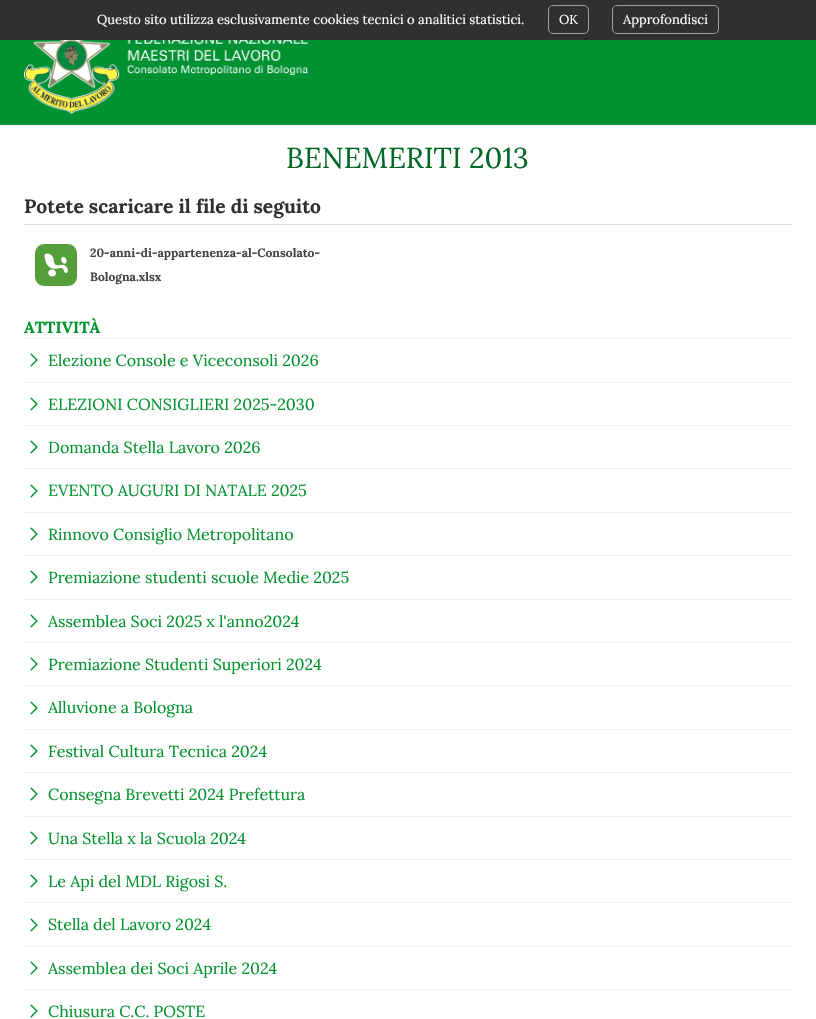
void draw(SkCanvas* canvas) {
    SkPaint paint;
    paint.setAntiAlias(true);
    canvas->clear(0xFFFFFFFF);
    paint.setColor(0xFF312F30);
    canvas->drawRect(SkRect::MakeXYWH(0, 0, 816, 40), paint);
    SkFont font1(fontMgr->matchFamilyStyle("Lora", SkFontStyle::Normal()), 13);
    font1.setSubpixel(true);
    paint.setColor(0xFFFFFFFF);
    canvas->drawString("Questo sito utilizza esclusivamente cookies tecnici o analitici statistici.", 97, 24, font1, paint);
    paint.setStyle(SkPaint::kStroke_Style);
    paint.setStrokeWidth(1);
    paint.setColor(0xFF9D9FA1);
    canvas->drawRoundRect(SkRect::MakeXYWH(548.5f, 5.5f, 40, 28), 4.5f, 4.5f, paint);
    paint.setStyle(SkPaint::kFill_Style);
    paint.setColor(0xFFFFFFFF);
    canvas->drawString("OK", 559, 24, font1, paint);
    paint.setStyle(SkPaint::kStroke_Style);
    paint.setColor(0xFF9D9FA1);
    canvas->drawRoundRect(SkRect::MakeXYWH(612.5f, 5.5f, 106, 28), 4.5f, 4.5f, paint);
    paint.setStyle(SkPaint::kFill_Style);
    paint.setColor(0xFFFFFFFF);
    canvas->drawString("Approfondisci", 623, 24, font1, paint);
    paint.setColor(0xFF009132);
    canvas->drawRect(SkRect::MakeXYWH(0, 40, 816, 85), paint);
    canvas->drawImageRect(SkImages::DeferredFromEncodedData(SkData::MakeFromFileName("img1.png")), SkRect::MakeXYWH(24, 40, 285, 74), SkSamplingOptions());
    SkFont font2(fontMgr->matchFamilyStyle("Lora", SkFontStyle::Normal()), 28.75f);
    font2.setSubpixel(true);
    paint.setColor(0xFF006724);
    canvas->drawString("BENEMERITI 2013", 286, 168, font2, paint);
    paint.setColor(0xFFDDDDDD);
    canvas->drawRect(SkRect::MakeXYWH(24, 224, 768, 1), paint);
    SkFont font3(fontMgr->matchFamilyStyle("Lora", SkFontStyle::Bold()), 19.25f);
    font3.setSubpixel(true);
    paint.setColor(0xFF312F30);
    canvas->drawString("Potete scaricare il file di seguito", 24, 213, font3, paint);
    canvas->drawImageRect(SkImages::DeferredFromEncodedData(SkData::MakeFromFileName("img2.png")), SkRect::MakeXYWH(35, 244, 42, 42), SkSamplingOptions());
    SkFont font4(fontMgr->matchFamilyStyle("Lora", SkFontStyle::Bold()), 12);
    font4.setSubpixel(true);
    paint.setColor(0xFF444444);
    canvas->drawString("20-anni-di-appartenenza-al-Consolato-", 90, 257, font4, paint);
    canvas->drawString("Bologna.xlsx", 90, 281, font4, paint);
    SkFont font5(fontMgr->matchFamilyStyle("Lora", SkFontStyle::Bold()), 16);
    font5.setSubpixel(true);
    paint.setColor(0xFF00922C);
    canvas->drawString("ATTIVITÀ", 24, 333, font5, paint);
    canvas->drawImageRect(SkImages::DeferredFromEncodedData(SkData::MakeFromFileName("img3.png")), SkRect::MakeXYWH(30, 353, 8, 14), SkSamplingOptions());
    paint.setColor(0xFFEEEEEE);
    canvas->drawRect(SkRect::MakeXYWH(24, 338, 768, 1), paint);
    SkFont font6(fontMgr->matchFamilyStyle("Lora", SkFontStyle::Normal()), 16);
    font6.setSubpixel(true);
    paint.setColor(0xFF00922C);
    canvas->drawString("Elezione Console e Viceconsoli 2026", 48, 366, font6, paint);
    canvas->drawImageRect(SkImages::DeferredFromEncodedData(SkData::MakeFromFileName("img3.png")), SkRect::MakeXYWH(30, 397, 8, 14), SkSamplingOptions());
    paint.setColor(0xFFEEEEEE);
    canvas->drawRect(SkRect::MakeXYWH(24, 382, 768, 1), paint);
    paint.setColor(0xFF00922C);
    canvas->drawString("ELEZIONI CONSIGLIERI 2025-2030", 48, 410, font6, paint);
    canvas->drawImageRect(SkImages::DeferredFromEncodedData(SkData::MakeFromFileName("img3.png")), SkRect::MakeXYWH(30, 440, 8, 14), SkSamplingOptions());
    paint.setColor(0xFFEEEEEE);
    canvas->drawRect(SkRect::MakeXYWH(24, 425, 768, 1), paint);
    paint.setColor(0xFF00922C);
    canvas->drawString("Domanda Stella Lavoro 2026", 48, 453, font6, paint);
    canvas->drawImageRect(SkImages::DeferredFromEncodedData(SkData::MakeFromFileName("img3.png")), SkRect::MakeXYWH(30, 484, 8, 14), SkSamplingOptions());
    paint.setColor(0xFFEEEEEE);
    canvas->drawRect(SkRect::MakeXYWH(24, 468, 768, 1), paint);
    paint.setColor(0xFF00922C);
    canvas->drawString("EVENTO AUGURI DI NATALE 2025", 48, 496, font6, paint);
    canvas->drawImageRect(SkImages::DeferredFromEncodedData(SkData::MakeFromFileName("img3.png")), SkRect::MakeXYWH(30, 527, 8, 14), SkSamplingOptions());
    paint.setColor(0xFFEEEEEE);
    canvas->drawRect(SkRect::MakeXYWH(24, 512, 768, 1), paint);
    paint.setColor(0xFF00922C);
    canvas->drawString("Rinnovo Consiglio Metropolitano", 48, 540, font6, paint);
    canvas->drawImageRect(SkImages::DeferredFromEncodedData(SkData::MakeFromFileName("img3.png")), SkRect::MakeXYWH(30, 570, 8, 14), SkSamplingOptions());
    paint.setColor(0xFFEEEEEE);
    canvas->drawRect(SkRect::MakeXYWH(24, 555, 768, 1), paint);
    paint.setColor(0xFF00922C);
    canvas->drawString("Premiazione studenti scuole Medie 2025", 48, 583, font6, paint);
    canvas->drawImageRect(SkImages::DeferredFromEncodedData(SkData::MakeFromFileName("img3.png")), SkRect::MakeXYWH(30, 614, 8, 14), SkSamplingOptions());
    paint.setColor(0xFFEEEEEE);
    canvas->drawRect(SkRect::MakeXYWH(24, 599, 768, 1), paint);
    paint.setColor(0xFF00922C);
    canvas->drawString("Assemblea Soci 2025 x l'anno2024", 48, 627, font6, paint);
    canvas->drawImageRect(SkImages::DeferredFromEncodedData(SkData::MakeFromFileName("img3.png")), SkRect::MakeXYWH(30, 657, 8, 14), SkSamplingOptions());
    paint.setColor(0xFFEEEEEE);
    canvas->drawRect(SkRect::MakeXYWH(24, 642, 768, 1), paint);
    paint.setColor(0xFF00922C);
    canvas->drawString("Premiazione Studenti Superiori 2024", 48, 670, font6, paint);
    canvas->drawImageRect(SkImages::DeferredFromEncodedData(SkData::MakeFromFileName("img3.png")), SkRect::MakeXYWH(30, 701, 8, 14), SkSamplingOptions());
    paint.setColor(0xFFEEEEEE);
    canvas->drawRect(SkRect::MakeXYWH(24, 685, 768, 1), paint);
    paint.setColor(0xFF00922C);
    canvas->drawString("Alluvione a Bologna", 48, 713, font6, paint);
    canvas->drawImageRect(SkImages::DeferredFromEncodedData(SkData::MakeFromFileName("img3.png")), SkRect::MakeXYWH(30, 744, 8, 14), SkSamplingOptions());
    paint.setColor(0xFFEEEEEE);
    canvas->drawRect(SkRect::MakeXYWH(24, 729, 768, 1), paint);
    paint.setColor(0xFF00922C);
    canvas->drawString("Festival Cultura Tecnica 2024", 48, 757, font6, paint);
    canvas->drawImageRect(SkImages::DeferredFromEncodedData(SkData::MakeFromFileName("img3.png")), SkRect::MakeXYWH(30, 787, 8, 14), SkSamplingOptions());
    paint.setColor(0xFFEEEEEE);
    canvas->drawRect(SkRect::MakeXYWH(24, 772, 768, 1), paint);
    paint.setColor(0xFF00922C);
    canvas->drawString("Consegna Brevetti 2024 Prefettura", 48, 800, font6, paint);
    canvas->drawImageRect(SkImages::DeferredFromEncodedData(SkData::MakeFromFileName("img3.png")), SkRect::MakeXYWH(30, 831, 8, 14), SkSamplingOptions());
    paint.setColor(0xFFEEEEEE);
    canvas->drawRect(SkRect::MakeXYWH(24, 816, 768, 1), paint);
    paint.setColor(0xFF00922C);
    canvas->drawString("Una Stella x la Scuola 2024", 48, 844, font6, paint);
    canvas->drawImageRect(SkImages::DeferredFromEncodedData(SkData::MakeFromFileName("img3.png")), SkRect::MakeXYWH(30, 874, 8, 14), SkSamplingOptions());
    paint.setColor(0xFFEEEEEE);
    canvas->drawRect(SkRect::MakeXYWH(24, 859, 768, 1), paint);
    paint.setColor(0xFF00922C);
    canvas->drawString("Le Api del MDL Rigosi S.", 48, 887, font6, paint);
    canvas->drawImageRect(SkImages::DeferredFromEncodedData(SkData::MakeFromFileName("img3.png")), SkRect::MakeXYWH(30, 918, 8, 14), SkSamplingOptions());
    paint.setColor(0xFFEEEEEE);
    canvas->drawRect(SkRect::MakeXYWH(24, 902, 768, 1), paint);
    paint.setColor(0xFF00922C);
    canvas->drawString("Stella del Lavoro 2024", 48, 930, font6, paint);
    canvas->drawImageRect(SkImages::DeferredFromEncodedData(SkData::MakeFromFileName("img3.png")), SkRect::MakeXYWH(30, 961, 8, 14), SkSamplingOptions());
    paint.setColor(0xFFEEEEEE);
    canvas->drawRect(SkRect::MakeXYWH(24, 946, 768, 1), paint);
    paint.setColor(0xFF00922C);
    canvas->drawString("Assemblea dei Soci Aprile 2024", 48, 974, font6, paint);
    canvas->drawImageRect(SkImages::DeferredFromEncodedData(SkData::MakeFromFileName("img3.png")), SkRect::MakeXYWH(30, 1004, 8, 14), SkSamplingOptions());
    paint.setColor(0xFFEEEEEE);
    canvas->drawRect(SkRect::MakeXYWH(24, 989, 768, 1), paint);
    paint.setColor(0xFF00922C);
    canvas->drawString("Chiusura C.C. POSTE", 48, 1017, font6, paint);
}
